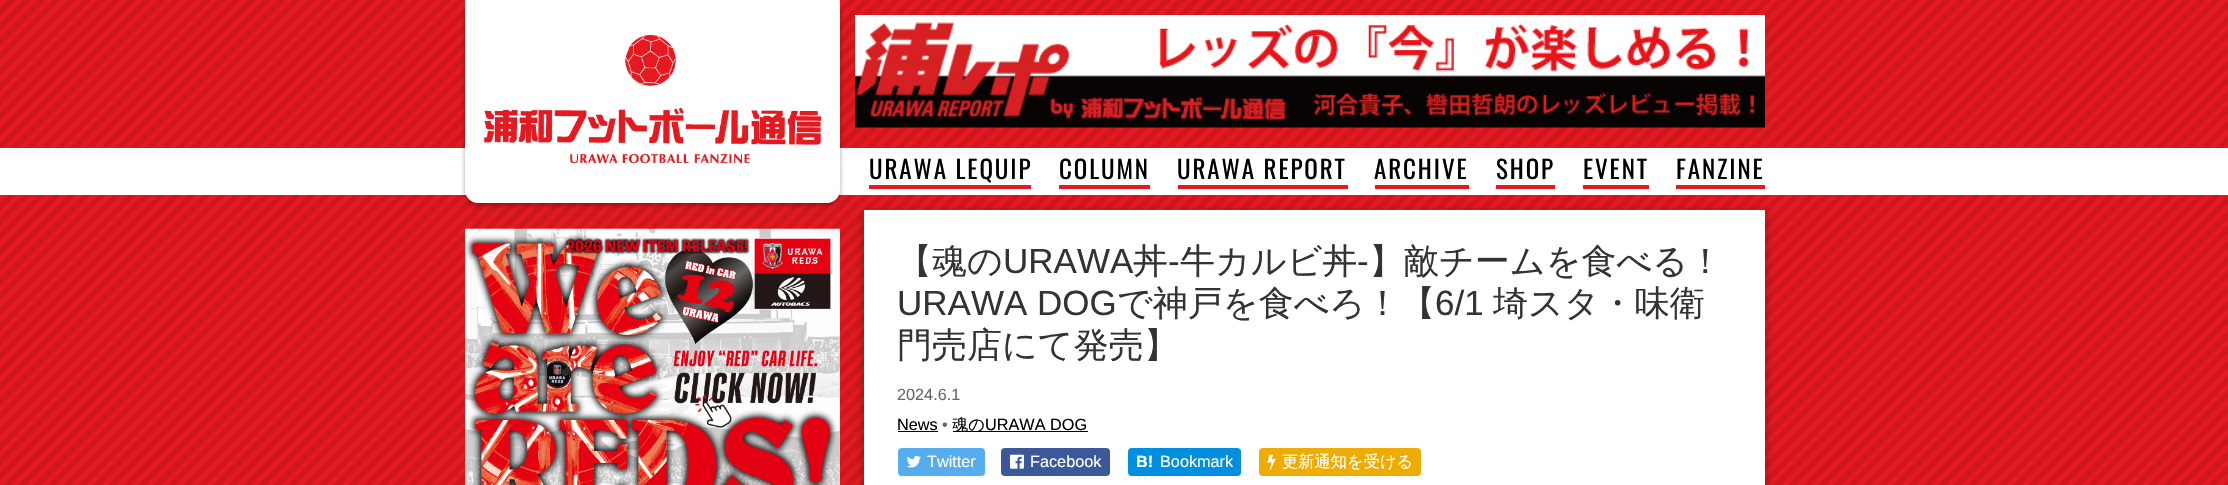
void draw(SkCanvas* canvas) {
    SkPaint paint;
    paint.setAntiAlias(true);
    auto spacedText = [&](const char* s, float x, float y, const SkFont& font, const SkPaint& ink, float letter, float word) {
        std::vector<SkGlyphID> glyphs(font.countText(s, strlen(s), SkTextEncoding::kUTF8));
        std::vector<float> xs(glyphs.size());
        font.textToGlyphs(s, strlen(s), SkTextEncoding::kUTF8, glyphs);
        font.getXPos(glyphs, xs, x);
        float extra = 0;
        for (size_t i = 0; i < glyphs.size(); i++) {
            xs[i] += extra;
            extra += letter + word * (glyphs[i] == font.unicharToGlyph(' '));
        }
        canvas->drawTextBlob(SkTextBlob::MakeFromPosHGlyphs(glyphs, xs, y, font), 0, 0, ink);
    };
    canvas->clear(0xFFFFFFFF);
    canvas->drawImageRect(SkImages::DeferredFromEncodedData(SkData::MakeFromFileName("img1.png")), SkRect::MakeXYWH(0, 0, 2228, 485), SkSamplingOptions());
    paint.setColor(0xFFFFFFFF);
    canvas->drawRect(SkRect::MakeXYWH(0, 148, 2228, 47), paint);
    paint.setColor(0x59000000);
    paint.setMaskFilter(SkMaskFilter::MakeBlur(kNormal_SkBlurStyle, 2.5f));
    canvas->drawRoundRect(SkRect::MakeXYWH(465, 3, 375, 202), 13, 13, paint);
    paint.setMaskFilter(nullptr);
    paint.setColor(0xFFFFFFFF);
    canvas->drawPath(SkPathBuilder().moveTo(465, 0).lineTo(840, 0).lineTo(840, 190).cubicTo(840, 197, 834, 203, 827, 203).lineTo(478, 203).cubicTo(471, 203, 465, 197, 465, 190).close().detach(), paint);
    canvas->drawImageRect(SkImages::DeferredFromEncodedData(SkData::MakeFromFileName("img2.png")), SkRect::MakeXYWH(483, 35, 339, 129), SkSamplingOptions());
    canvas->drawImageRect(SkImages::DeferredFromEncodedData(SkData::MakeFromFileName("img3.png")), SkRect::MakeXYWH(855, 15, 910, 113), SkSamplingOptions());
    paint.setColor(0xFFE41A20);
    canvas->drawRect(SkRect::MakeXYWH(869, 185, 162, 4), paint);
    SkFont font1(fontMgr->matchFamilyStyle("Oswald", SkFontStyle::Normal()), 25);
    font1.setSubpixel(true);
    paint.setColor(0xFF000000);
    spacedText("URAWA LEQUIP", 869, 179, font1, paint, 1.9f, 0);
    paint.setColor(0xFFE41A20);
    canvas->drawRect(SkRect::MakeXYWH(1059, 185, 91, 4), paint);
    paint.setColor(0xFF000000);
    spacedText("COLUMN", 1059, 179, font1, paint, 1.9f, 0);
    paint.setColor(0xFFE41A20);
    canvas->drawRect(SkRect::MakeXYWH(1178, 185, 170, 4), paint);
    paint.setColor(0xFF000000);
    spacedText("URAWA REPORT", 1177, 179, font1, paint, 1.9f, 0);
    paint.setColor(0xFFE41A20);
    canvas->drawRect(SkRect::MakeXYWH(1375, 185, 94, 4), paint);
    paint.setColor(0xFF000000);
    spacedText("ARCHIVE", 1374, 179, font1, paint, 1.9f, 0);
    paint.setColor(0xFFE41A20);
    canvas->drawRect(SkRect::MakeXYWH(1496, 185, 59, 4), paint);
    paint.setColor(0xFF000000);
    spacedText("SHOP", 1496, 179, font1, paint, 1.9f, 0);
    paint.setColor(0xFFE41A20);
    canvas->drawRect(SkRect::MakeXYWH(1583, 185, 66, 4), paint);
    paint.setColor(0xFF000000);
    spacedText("EVENT", 1583, 179, font1, paint, 1.9f, 0);
    paint.setColor(0xFFE41A20);
    canvas->drawRect(SkRect::MakeXYWH(1676, 185, 89, 4), paint);
    paint.setColor(0xFF000000);
    spacedText("FANZINE", 1676, 179, font1, paint, 1.9f, 0);
    canvas->drawImageRect(SkImages::DeferredFromEncodedData(SkData::MakeFromFileName("img4.png")), SkRect::MakeXYWH(465, 228, 375, 257), SkSamplingOptions());
    paint.setColor(0x59000000);
    paint.setMaskFilter(SkMaskFilter::MakeBlur(kNormal_SkBlurStyle, 4.5f));
    canvas->drawRect(SkRect::MakeXYWH(864, 213, 901, 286), paint);
    paint.setMaskFilter(nullptr);
    paint.setColor(0xFFFFFFFF);
    canvas->drawRect(SkRect::MakeXYWH(864, 210, 901, 275), paint);
    SkFont font2(fontMgr->matchFamilyStyle("WenQuanYi Zen Hei", SkFontStyle(500, SkFontStyle::kNormal_Width, SkFontStyle::kUpright_Slant)), 35);
    font2.setSubpixel(true);
    paint.setColor(0xFF333333);
    canvas->drawString("【魂の", 897, 273, font2, paint);
    SkFont font3(fontMgr->matchFamilyStyle("Liberation Sans", SkFontStyle::Normal()), 35);
    font3.setSubpixel(true);
    canvas->drawString("URAWA", 1003, 273, font3, paint);
    canvas->drawString("丼", 1133, 273, font2, paint);
    canvas->drawString("-", 1168, 273, font3, paint);
    canvas->drawString("牛カルビ丼", 1180, 273, font2, paint);
    canvas->drawString("-", 1357, 273, font3, paint);
    canvas->drawString("】敵チームを食べる！", 1369, 273, font2, paint);
    canvas->drawString("URAWA DOG", 897, 315, font3, paint);
    canvas->drawString("で神戸を食べろ！【", 1117, 315, font2, paint);
    canvas->drawString("6/1", 1435, 315, font3, paint);
    canvas->drawString("埼スタ・味衛", 1493, 315, font2, paint);
    canvas->drawString("門売店にて発売】", 897, 357, font2, paint);
    SkFont font4(fontMgr->matchFamilyStyle("Liberation Sans", SkFontStyle::Normal()), 16.25f);
    font4.setSubpixel(true);
    paint.setColor(0xFF666666);
    canvas->drawString("2024.6.1", 897, 400, font4, paint);
    paint.setColor(0xFF000000);
    canvas->drawString("News", 897, 430, font4, paint);
    canvas->drawRect(SkRect::MakeXYWH(898, 431, 40, 1), paint);
    paint.setColor(0xFF666666);
    canvas->drawString("•", 942, 430, font4, paint);
    paint.setColor(0xFF000000);
    canvas->drawRect(SkRect::MakeXYWH(953, 431, 135, 1), paint);
    SkFont font5(fontMgr->matchFamilyStyle("WenQuanYi Zen Hei", SkFontStyle(500, SkFontStyle::kNormal_Width, SkFontStyle::kUpright_Slant)), 16.25f);
    font5.setSubpixel(true);
    canvas->drawString("魂の", 952, 430, font5, paint);
    canvas->drawString("URAWA DOG", 985, 430, font4, paint);
    paint.setColor(0xFF55ACEE);
    canvas->drawRoundRect(SkRect::MakeXYWH(898, 448, 87, 28), 4, 4, paint);
    canvas->drawImageRect(SkImages::DeferredFromEncodedData(SkData::MakeFromFileName("img5.png")), SkRect::MakeXYWH(906, 455, 15, 13), SkSamplingOptions());
    paint.setColor(0xFFFFFFFF);
    canvas->drawString("Twitter", 927, 467, font4, paint);
    paint.setColor(0xFF3B5998);
    canvas->drawRoundRect(SkRect::MakeXYWH(1001, 448, 109, 28), 4, 4, paint);
    canvas->drawImageRect(SkImages::DeferredFromEncodedData(SkData::MakeFromFileName("img6.png")), SkRect::MakeXYWH(1010, 454, 14, 15), SkSamplingOptions());
    paint.setColor(0xFFFFFFFF);
    canvas->drawString("Facebook", 1030, 467, font4, paint);
    paint.setColor(0xFF008FDE);
    canvas->drawRoundRect(SkRect::MakeXYWH(1128, 448, 113, 28), 4, 4, paint);
    SkFont font6(fontMgr->matchFamilyStyle("Liberation Sans", SkFontStyle::Bold()), 16.25f);
    font6.setSubpixel(true);
    paint.setColor(0xFFFFFFFF);
    canvas->drawString("B!", 1136, 467, font6, paint);
    canvas->drawString("Bookmark", 1160, 467, font4, paint);
    paint.setColor(0xFFEEAC00);
    canvas->drawRoundRect(SkRect::MakeXYWH(1259, 448, 162, 28), 4, 4, paint);
    canvas->drawImageRect(SkImages::DeferredFromEncodedData(SkData::MakeFromFileName("img7.png")), SkRect::MakeXYWH(1267, 454, 9, 16), SkSamplingOptions());
    paint.setColor(0xFFFFFFFF);
    canvas->drawString("更新通知を受ける", 1282, 467, font5, paint);
}
